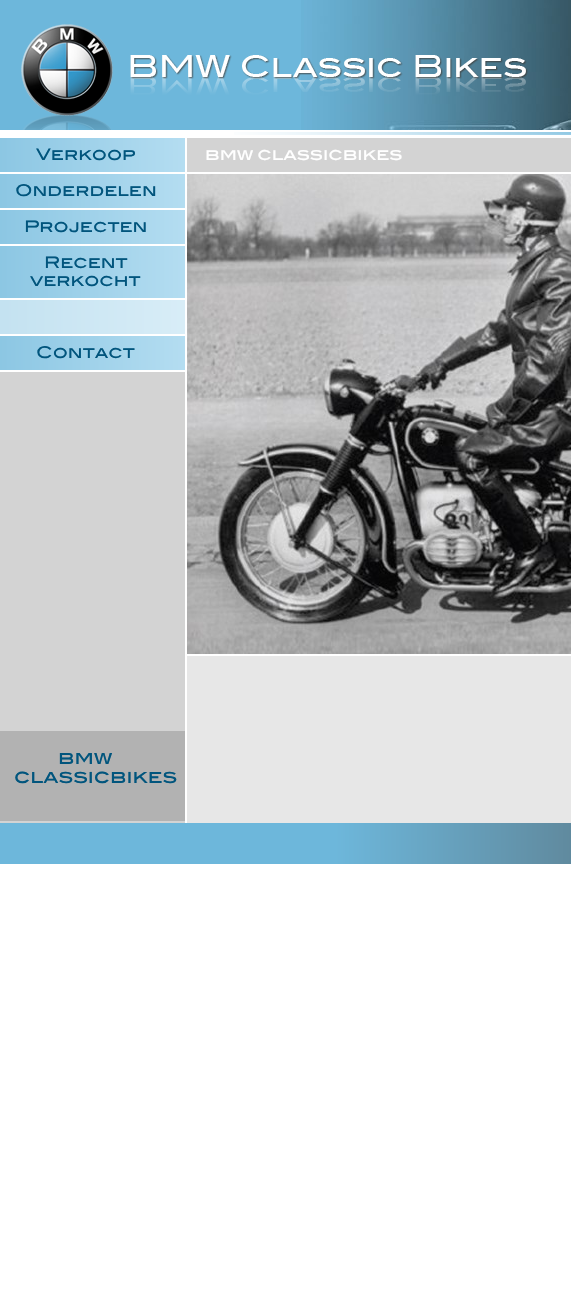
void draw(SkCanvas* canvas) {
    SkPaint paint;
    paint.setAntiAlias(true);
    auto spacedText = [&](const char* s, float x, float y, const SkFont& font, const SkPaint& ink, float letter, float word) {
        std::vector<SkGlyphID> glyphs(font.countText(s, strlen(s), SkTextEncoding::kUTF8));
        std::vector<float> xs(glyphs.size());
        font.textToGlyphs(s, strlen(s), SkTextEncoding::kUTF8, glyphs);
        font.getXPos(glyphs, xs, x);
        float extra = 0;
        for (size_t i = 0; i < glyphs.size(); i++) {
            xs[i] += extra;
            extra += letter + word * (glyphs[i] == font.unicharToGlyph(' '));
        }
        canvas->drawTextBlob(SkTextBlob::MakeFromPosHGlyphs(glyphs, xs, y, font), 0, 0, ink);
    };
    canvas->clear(0xFFFFFFFF);
    paint.setColor(0xFF6DB7DB);
    canvas->drawRect(SkRect::MakeXYWH(0, 0, 301, 130), paint);
    canvas->drawImageRect(SkImages::DeferredFromEncodedData(SkData::MakeFromFileName("img1.png")), SkRect::MakeXYWH(301, 0, 270, 130), SkSamplingOptions());
    canvas->drawImageRect(SkImages::DeferredFromEncodedData(SkData::MakeFromFileName("img2.png")), SkRect::MakeXYWH(21, 24, 507, 106), SkSamplingOptions());
    canvas->drawImageRect(SkImages::DeferredFromEncodedData(SkData::MakeFromFileName("img3.png")), SkRect::MakeXYWH(234, 132, 337, 3), SkSamplingOptions());
    paint.setColor(0xFFD3D3D3);
    canvas->drawRect(SkRect::MakeXYWH(0, 372, 185, 359), paint);
    {
        const SkColor colors[] = {0xFF89C5E2, 0xFFB4DDF1};
        const float stops[] = {0, 1};
        const SkPoint ends[] = {{-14, 155}, {185, 155}};
        paint.setShader(SkGradientShader::MakeLinear(ends, colors, stops, 2, SkTileMode::kClamp));
        paint.setAlpha(255);
    }
    canvas->drawRect(SkRect::MakeXYWH(0, 138, 185, 34), paint);
    SkFont font1(fontMgr->matchFamilyStyle("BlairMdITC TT", SkFontStyle(500, SkFontStyle::kNormal_Width, SkFontStyle::kUpright_Slant)), 16);
    font1.setSubpixel(true);
    paint.setShader(nullptr);
    paint.setColor(0xFF01557D);
    canvas->drawString("Verkoop", 36, 160, font1, paint);
    {
        const SkColor colors[] = {0xFF89C5E2, 0xFFB4DDF1};
        const float stops[] = {0, 1};
        const SkPoint ends[] = {{-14, 191}, {185, 191}};
        paint.setShader(SkGradientShader::MakeLinear(ends, colors, stops, 2, SkTileMode::kClamp));
        paint.setAlpha(255);
    }
    canvas->drawRect(SkRect::MakeXYWH(0, 174, 185, 34), paint);
    paint.setShader(nullptr);
    paint.setColor(0xFF01557D);
    canvas->drawString("Onderdelen", 15, 196, font1, paint);
    {
        const SkColor colors[] = {0xFF89C5E2, 0xFFB4DDF1};
        const float stops[] = {0, 1};
        const SkPoint ends[] = {{-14, 227}, {185, 227}};
        paint.setShader(SkGradientShader::MakeLinear(ends, colors, stops, 2, SkTileMode::kClamp));
        paint.setAlpha(255);
    }
    canvas->drawRect(SkRect::MakeXYWH(0, 210, 185, 34), paint);
    paint.setShader(nullptr);
    paint.setColor(0xFF01557D);
    canvas->drawString("Projecten", 24, 232, font1, paint);
    {
        const SkColor colors[] = {0xFF89C5E2, 0xFFB4DDF1};
        const float stops[] = {0, 1};
        const SkPoint ends[] = {{-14, 272}, {185, 272}};
        paint.setShader(SkGradientShader::MakeLinear(ends, colors, stops, 2, SkTileMode::kClamp));
        paint.setAlpha(255);
    }
    canvas->drawRect(SkRect::MakeXYWH(0, 246, 185, 52), paint);
    paint.setShader(nullptr);
    paint.setColor(0xFF01557D);
    canvas->drawString("Recent", 44, 268, font1, paint);
    canvas->drawString("verkocht", 30, 286, font1, paint);
    {
        const SkColor colors[] = {0xFFC2E1F0, 0xFFD8EDF7};
        const float stops[] = {0, 1};
        const SkPoint ends[] = {{-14, 317}, {185, 317}};
        paint.setShader(SkGradientShader::MakeLinear(ends, colors, stops, 2, SkTileMode::kClamp));
        paint.setAlpha(255);
    }
    canvas->drawRect(SkRect::MakeXYWH(0, 300, 185, 34), paint);
    {
        const SkColor colors[] = {0xFF89C5E2, 0xFFB4DDF1};
        const float stops[] = {0, 1};
        const SkPoint ends[] = {{-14, 353}, {185, 353}};
        paint.setShader(SkGradientShader::MakeLinear(ends, colors, stops, 2, SkTileMode::kClamp));
        paint.setAlpha(255);
    }
    canvas->drawRect(SkRect::MakeXYWH(0, 336, 185, 34), paint);
    paint.setShader(nullptr);
    paint.setColor(0xFF01557D);
    canvas->drawString("Contact", 36, 358, font1, paint);
    paint.setColor(0xFFB2B2B2);
    canvas->drawRect(SkRect::MakeXYWH(0, 731, 185, 90), paint);
    paint.setColor(0xFFD3D3D3);
    canvas->drawRect(SkRect::MakeXYWH(0, 821, 185, 2), paint);
    SkFont font2(fontMgr->matchFamilyStyle("BlairMdITC TT", SkFontStyle(500, SkFontStyle::kNormal_Width, SkFontStyle::kUpright_Slant)), 18);
    font2.setSubpixel(true);
    paint.setColor(0xFF01557D);
    canvas->drawString("bmw", 58, 764, font2, paint);
    canvas->drawString("classicbikes", 14, 783, font2, paint);
    paint.setColor(0xFFE7E7E7);
    canvas->drawRect(SkRect::MakeXYWH(187, 656, 384, 167), paint);
    paint.setColor(0xFFD3D3D3);
    canvas->drawRect(SkRect::MakeXYWH(187, 138, 384, 34), paint);
    paint.setColor(0xFFFFFFFF);
    spacedText("bmw classicbikes", 205, 160, font1, paint, 0, -1);
    canvas->drawImageRect(SkImages::DeferredFromEncodedData(SkData::MakeFromFileName("img4.png")), SkRect::MakeXYWH(187, 174, 384, 480), SkSamplingOptions());
    {
        const SkColor colors[] = {0xFF6DB7DB, 0xFF4F4F4F};
        const float stops[] = {0.34f, 0.87f};
        const SkPoint ends[] = {{-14, 844}, {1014, 844}};
        paint.setShader(SkGradientShader::MakeLinear(ends, colors, stops, 2, SkTileMode::kClamp));
        paint.setAlpha(255);
    }
    canvas->drawRect(SkRect::MakeXYWH(0, 823, 571, 41), paint);
}
